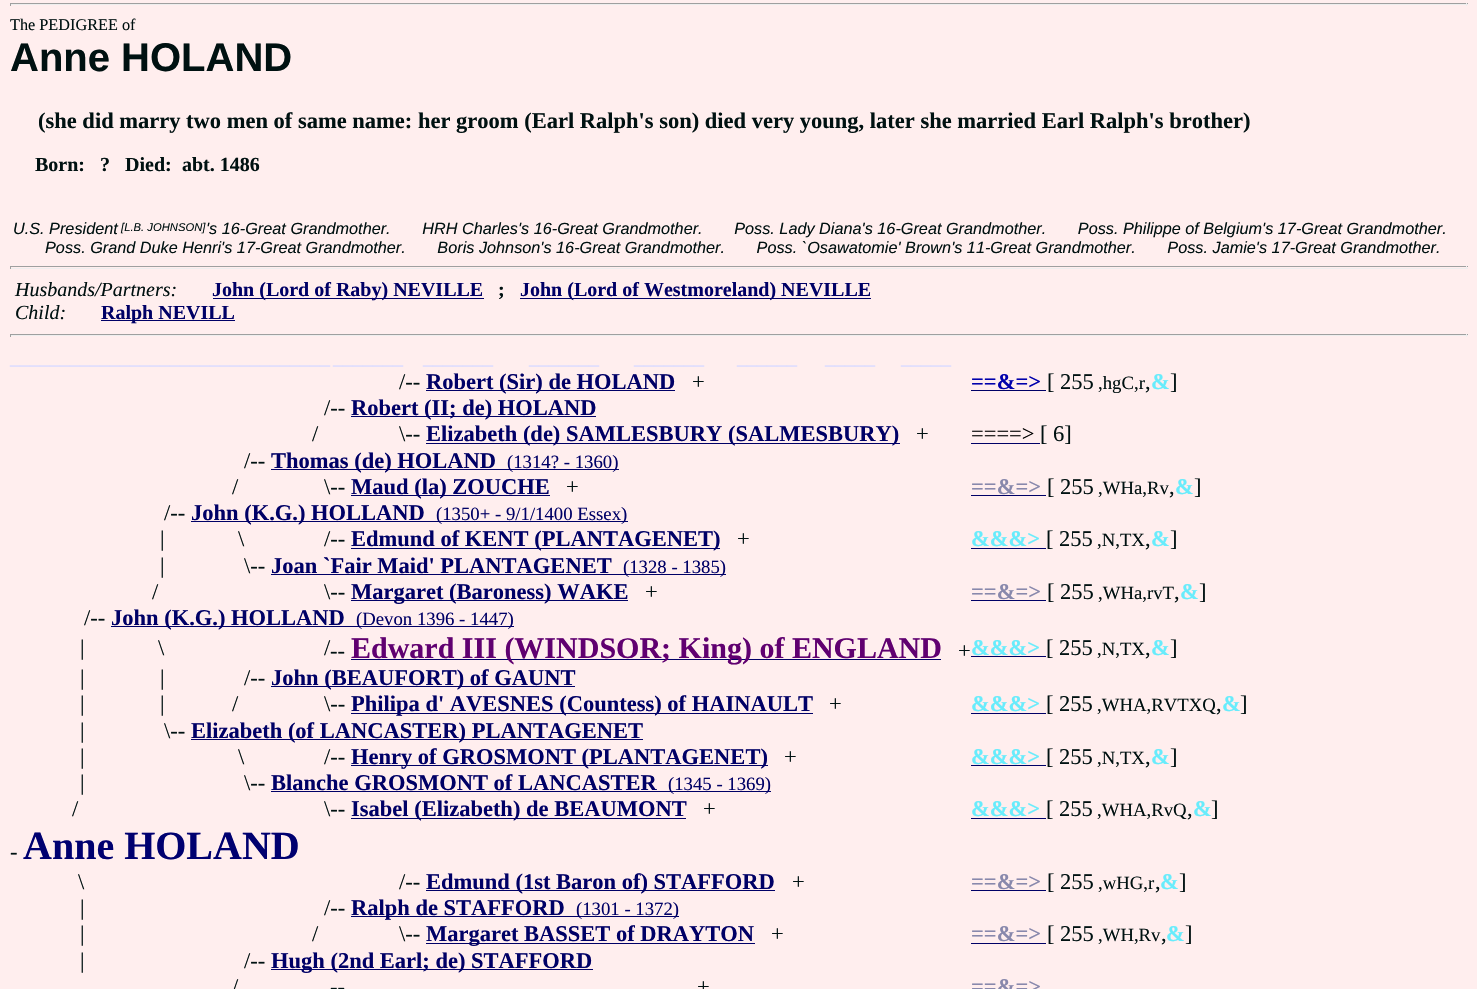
void draw(SkCanvas* canvas) {
    SkPaint paint;
    paint.setAntiAlias(true);
    canvas->clear(0xFFFFEEEE);
    paint.setColor(0xFF9F9F9F);
    canvas->drawRect(SkRect::MakeXYWH(10, 3, 1458, 1), paint);
    paint.setColor(0xFFEEEEEE);
    canvas->drawRect(SkRect::MakeXYWH(1466, 3, 1, 3), paint);
    canvas->drawRect(SkRect::MakeXYWH(10, 4, 1458, 1), paint);
    paint.setColor(0xFF9F9F9F);
    canvas->drawRect(SkRect::MakeXYWH(10, 3, 1, 3), paint);
    SkFont font1(fontMgr->matchFamilyStyle("Liberation Serif", SkFontStyle::Normal()), 16.25f);
    font1.setSubpixel(true);
    paint.setColor(0xFF001111);
    canvas->drawString("The PEDIGREE of", 10, 30, font1, paint);
    SkFont font2(fontMgr->matchFamilyStyle("Liberation Sans", SkFontStyle::Bold()), 40);
    font2.setSubpixel(true);
    canvas->drawString("Anne HOLAND", 10, 71, font2, paint);
    SkFont font3(fontMgr->matchFamilyStyle("Liberation Serif", SkFontStyle::Bold()), 22.5f);
    font3.setSubpixel(true);
    canvas->drawString("(she did marry two men of same name: her groom (Earl Ralph's son) died very young, later she married Earl Ralph's brother)", 38, 128, font3, paint);
    SkFont font4(fontMgr->matchFamilyStyle("Liberation Serif", SkFontStyle::Bold()), 20);
    font4.setSubpixel(true);
    canvas->drawString("Born:", 35, 171, font4, paint);
    canvas->drawString("?   Died:", 100, 171, font4, paint);
    canvas->drawString("abt. 1486", 182, 171, font4, paint);
    SkFont font5(fontMgr->matchFamilyStyle("Liberation Sans", SkFontStyle::Italic()), 16.25f);
    font5.setSubpixel(true);
    canvas->drawString("U.S. President", 13, 234, font5, paint);
    SkFont font6(fontMgr->matchFamilyStyle("Liberation Sans", SkFontStyle::Italic()), 11.25f);
    font6.setSubpixel(true);
    canvas->drawString("[L.B. JOHNSON]", 121, 231, font6, paint);
    canvas->drawString("'s 16-Great Grandmother.       HRH Charles's 16-Great Grandmother.       Poss. Lady Diana's 16-Great Grandmother.       Poss. Philippe of Belgium's 17-Great Grandmother.", 206, 234, font5, paint);
    canvas->drawString("Poss. Grand Duke Henri's 17-Great Grandmother.       Boris Johnson's 16-Great Grandmother.       Poss. `Osawatomie' Brown's 11-Great Grandmother.       Poss. Jamie's 17-Great Grandmother.", 45, 253, font5, paint);
    paint.setColor(0xFF9F9F9F);
    canvas->drawRect(SkRect::MakeXYWH(10, 266, 1458, 1), paint);
    paint.setColor(0xFFEEEEEE);
    canvas->drawRect(SkRect::MakeXYWH(1466, 266, 1, 3), paint);
    canvas->drawRect(SkRect::MakeXYWH(10, 268, 1458, 1), paint);
    paint.setColor(0xFF9F9F9F);
    canvas->drawRect(SkRect::MakeXYWH(10, 266, 1, 3), paint);
    SkFont font7(fontMgr->matchFamilyStyle("Liberation Serif", SkFontStyle::Italic()), 20);
    font7.setSubpixel(true);
    paint.setColor(0xFF001111);
    canvas->drawString("Husbands/Partners:", 15, 296, font7, paint);
    paint.setColor(0xFF000066);
    canvas->drawRect(SkRect::MakeXYWH(213, 298, 271, 1), paint);
    canvas->drawString("John (Lord of Raby) NEVILLE", 212, 296, font4, paint);
    paint.setColor(0xFF001111);
    canvas->drawString(";", 498, 296, font4, paint);
    paint.setColor(0xFF000066);
    canvas->drawRect(SkRect::MakeXYWH(520, 298, 351, 1), paint);
    canvas->drawString("John (Lord of Westmoreland) NEVILLE", 520, 296, font4, paint);
    paint.setColor(0xFF001111);
    canvas->drawString("Child:", 15, 319, font7, paint);
    paint.setColor(0xFF000066);
    canvas->drawRect(SkRect::MakeXYWH(101, 320, 134, 1), paint);
    canvas->drawString("Ralph NEVILL", 101, 319, font4, paint);
    paint.setColor(0xFF9F9F9F);
    canvas->drawRect(SkRect::MakeXYWH(10, 334, 1458, 1), paint);
    paint.setColor(0xFFEEEEEE);
    canvas->drawRect(SkRect::MakeXYWH(1466, 334, 1, 3), paint);
    canvas->drawRect(SkRect::MakeXYWH(10, 335, 1458, 1), paint);
    paint.setColor(0xFF9F9F9F);
    canvas->drawRect(SkRect::MakeXYWH(10, 334, 1, 3), paint);
    paint.setColor(0xFFDDDDFF);
    canvas->drawString("________________________________", 10, 364, font4, paint);
    canvas->drawString("_______", 333, 364, font4, paint);
    canvas->drawString("_______", 423, 364, font4, paint);
    canvas->drawString("_______", 529, 364, font4, paint);
    canvas->drawString("_______", 634, 364, font4, paint);
    canvas->drawString("______", 737, 364, font4, paint);
    canvas->drawString("_____", 825, 364, font4, paint);
    canvas->drawString("_____", 901, 364, font4, paint);
    SkFont font8(fontMgr->matchFamilyStyle("Liberation Serif", SkFontStyle::Normal()), 22.5f);
    font8.setSubpixel(true);
    paint.setColor(0xFF001111);
    canvas->drawString("/--", 399, 389, font8, paint);
    paint.setColor(0xFF000066);
    canvas->drawRect(SkRect::MakeXYWH(426, 390, 249, 1), paint);
    canvas->drawString("Robert (Sir) de HOLAND", 426, 389, font3, paint);
    paint.setColor(0xFF001111);
    canvas->drawString("+", 692, 389, font8, paint);
    paint.setColor(0xFF0000AC);
    canvas->drawString("==&=>", 971, 389, font3, paint);
    paint.setColor(0xFF000066);
    canvas->drawRect(SkRect::MakeXYWH(971, 390, 75, 1), paint);
    paint.setColor(0xFF001111);
    canvas->drawString("[ 255", 1047, 389, font8, paint);
    SkFont font9(fontMgr->matchFamilyStyle("Liberation Serif", SkFontStyle::Normal()), 18.75f);
    font9.setSubpixel(true);
    canvas->drawString(",hgC,r", 1098, 389, font9, paint);
    canvas->drawString(",", 1145, 389, font8, paint);
    paint.setColor(0xFF68ECFC);
    canvas->drawString("&", 1151, 389, font3, paint);
    paint.setColor(0xFF001111);
    canvas->drawString("]", 1170, 389, font8, paint);
    canvas->drawString("/--", 324, 415, font8, paint);
    paint.setColor(0xFF000066);
    canvas->drawRect(SkRect::MakeXYWH(351, 416, 245, 1), paint);
    canvas->drawString("Robert (II; de) HOLAND", 351, 415, font3, paint);
    paint.setColor(0xFF001111);
    canvas->drawString("/", 312, 441, font8, paint);
    canvas->drawString("\\--", 399, 441, font8, paint);
    paint.setColor(0xFF000066);
    canvas->drawRect(SkRect::MakeXYWH(426, 443, 474, 1), paint);
    canvas->drawString("Elizabeth (de) SAMLESBURY (SALMESBURY)", 426, 441, font3, paint);
    paint.setColor(0xFF001111);
    canvas->drawString("+", 916, 441, font8, paint);
    paint.setColor(0xFF000000);
    canvas->drawString("====>", 971, 441, font8, paint);
    paint.setColor(0xFF000066);
    canvas->drawRect(SkRect::MakeXYWH(971, 443, 69, 1), paint);
    paint.setColor(0xFF001111);
    canvas->drawString("[ 6]", 1040, 441, font8, paint);
    canvas->drawString("/--", 244, 468, font8, paint);
    paint.setColor(0xFF000066);
    canvas->drawRect(SkRect::MakeXYWH(271, 469, 348, 1), paint);
    canvas->drawString("Thomas (de) HOLAND", 271, 468, font3, paint);
    canvas->drawString("(1314? - 1360)", 507, 468, font9, paint);
    paint.setColor(0xFF001111);
    canvas->drawString("/", 232, 494, font8, paint);
    canvas->drawString("\\--", 324, 494, font8, paint);
    paint.setColor(0xFF000066);
    canvas->drawRect(SkRect::MakeXYWH(351, 495, 199, 1), paint);
    canvas->drawString("Maud (la) ZOUCHE", 351, 494, font3, paint);
    paint.setColor(0xFF001111);
    canvas->drawString("+", 566, 494, font8, paint);
    paint.setColor(0xFF8888AC);
    canvas->drawString("==&=>", 971, 494, font3, paint);
    paint.setColor(0xFF000066);
    canvas->drawRect(SkRect::MakeXYWH(971, 495, 75, 1), paint);
    paint.setColor(0xFF001111);
    canvas->drawString("[ 255", 1047, 494, font8, paint);
    canvas->drawString(",WHa,Rv", 1098, 494, font9, paint);
    canvas->drawString(",", 1169, 494, font8, paint);
    paint.setColor(0xFF68ECFC);
    canvas->drawString("&", 1175, 494, font3, paint);
    paint.setColor(0xFF001111);
    canvas->drawString("]", 1194, 494, font8, paint);
    canvas->drawString("/--", 164, 520, font8, paint);
    paint.setColor(0xFF000066);
    canvas->drawRect(SkRect::MakeXYWH(191, 521, 437, 1), paint);
    canvas->drawString("John (K.G.) HOLLAND", 191, 520, font3, paint);
    canvas->drawString("(1350+ - 9/1/1400 Essex)", 436, 520, font9, paint);
    paint.setColor(0xFF001111);
    canvas->drawString("|", 160, 546, font8, paint);
    canvas->drawString("\\", 238, 546, font8, paint);
    canvas->drawString("/--", 324, 546, font8, paint);
    paint.setColor(0xFF000066);
    canvas->drawRect(SkRect::MakeXYWH(351, 548, 369, 1), paint);
    canvas->drawString("Edmund of KENT (PLANTAGENET)", 351, 546, font3, paint);
    paint.setColor(0xFF001111);
    canvas->drawString("+", 737, 546, font8, paint);
    paint.setColor(0xFF68ECFC);
    canvas->drawString("&&&>", 971, 546, font3, paint);
    paint.setColor(0xFF000066);
    canvas->drawRect(SkRect::MakeXYWH(971, 548, 75, 1), paint);
    paint.setColor(0xFF001111);
    canvas->drawString("[ 255", 1046, 546, font8, paint);
    canvas->drawString(",N,TX", 1097, 546, font9, paint);
    canvas->drawString(",", 1145, 546, font8, paint);
    paint.setColor(0xFF68ECFC);
    canvas->drawString("&", 1151, 546, font3, paint);
    paint.setColor(0xFF001111);
    canvas->drawString("]", 1170, 546, font8, paint);
    canvas->drawString("|", 160, 573, font8, paint);
    canvas->drawString("\\--", 244, 573, font8, paint);
    paint.setColor(0xFF000066);
    canvas->drawString("Joan `Fair Maid' PLANTAGENET", 271, 573, font3, paint);
    canvas->drawRect(SkRect::MakeXYWH(271, 574, 455, 1), paint);
    canvas->drawString("(1328 - 1385)", 623, 573, font9, paint);
    paint.setColor(0xFF001111);
    canvas->drawString("/", 152, 599, font8, paint);
    canvas->drawString("\\--", 324, 599, font8, paint);
    paint.setColor(0xFF000066);
    canvas->drawRect(SkRect::MakeXYWH(351, 600, 277, 1), paint);
    canvas->drawString("Margaret (Baroness) WAKE", 351, 599, font3, paint);
    paint.setColor(0xFF001111);
    canvas->drawString("+", 645, 599, font8, paint);
    paint.setColor(0xFF8888AC);
    canvas->drawString("==&=>", 971, 599, font3, paint);
    paint.setColor(0xFF000066);
    canvas->drawRect(SkRect::MakeXYWH(971, 600, 75, 1), paint);
    paint.setColor(0xFF001111);
    canvas->drawString("[ 255", 1047, 599, font8, paint);
    canvas->drawString(",WHa,rvT", 1098, 599, font9, paint);
    canvas->drawString(",", 1174, 599, font8, paint);
    paint.setColor(0xFF68ECFC);
    canvas->drawString("&", 1180, 599, font3, paint);
    paint.setColor(0xFF001111);
    canvas->drawString("]", 1199, 599, font8, paint);
    canvas->drawString("/--", 84, 625, font8, paint);
    paint.setColor(0xFF000066);
    canvas->drawRect(SkRect::MakeXYWH(111, 626, 403, 1), paint);
    canvas->drawString("John (K.G.) HOLLAND", 111, 625, font3, paint);
    canvas->drawString("(Devon 1396 - 1447)", 356, 625, font9, paint);
    paint.setColor(0xFF001111);
    canvas->drawString("|", 80, 655, font8, paint);
    canvas->drawString("\\", 158, 655, font8, paint);
    canvas->drawString("/", 324, 655, font8, paint);
    canvas->drawString("--", 330, 658, font8, paint);
    paint.setColor(0xFF000066);
    canvas->drawRect(SkRect::MakeXYWH(351, 659, 590, 1), paint);
    SkFont font10(fontMgr->matchFamilyStyle("Liberation Serif", SkFontStyle::Bold()), 30);
    font10.setSubpixel(true);
    paint.setColor(0xFF600070);
    canvas->drawString("Edward III (WINDSOR; King) of ENGLAND", 351, 658, font10, paint);
    paint.setColor(0xFF001111);
    canvas->drawString("+", 958, 658, font8, paint);
    paint.setColor(0xFF68ECFC);
    canvas->drawString("&&&>", 971, 655, font3, paint);
    paint.setColor(0xFF000066);
    canvas->drawRect(SkRect::MakeXYWH(971, 656, 75, 1), paint);
    paint.setColor(0xFF001111);
    canvas->drawString("[ 255", 1046, 655, font8, paint);
    canvas->drawString(",N,TX", 1097, 655, font9, paint);
    canvas->drawString(",", 1145, 655, font8, paint);
    paint.setColor(0xFF68ECFC);
    canvas->drawString("&", 1151, 655, font3, paint);
    paint.setColor(0xFF001111);
    canvas->drawString("]", 1170, 655, font8, paint);
    canvas->drawString("|", 80, 685, font8, paint);
    canvas->drawString("|", 160, 685, font8, paint);
    canvas->drawString("/--", 244, 685, font8, paint);
    paint.setColor(0xFF000066);
    canvas->drawRect(SkRect::MakeXYWH(271, 686, 304, 1), paint);
    canvas->drawString("John (BEAUFORT) of GAUNT", 271, 685, font3, paint);
    paint.setColor(0xFF001111);
    canvas->drawString("|", 80, 711, font8, paint);
    canvas->drawString("|", 160, 711, font8, paint);
    canvas->drawString("/", 232, 711, font8, paint);
    canvas->drawString("\\--", 324, 711, font8, paint);
    paint.setColor(0xFF000066);
    canvas->drawRect(SkRect::MakeXYWH(351, 713, 462, 1), paint);
    canvas->drawString("Philipa d' AVESNES (Countess) of HAINAULT", 351, 711, font3, paint);
    paint.setColor(0xFF001111);
    canvas->drawString("+", 829, 711, font8, paint);
    paint.setColor(0xFF68ECFC);
    canvas->drawString("&&&>", 971, 711, font3, paint);
    paint.setColor(0xFF000066);
    canvas->drawRect(SkRect::MakeXYWH(971, 713, 75, 1), paint);
    paint.setColor(0xFF001111);
    canvas->drawString("[ 255", 1046, 711, font8, paint);
    canvas->drawString(",WHA,RVTXQ", 1097, 711, font9, paint);
    canvas->drawString(",", 1216, 711, font8, paint);
    paint.setColor(0xFF68ECFC);
    canvas->drawString("&", 1222, 711, font3, paint);
    paint.setColor(0xFF001111);
    canvas->drawString("]", 1240, 711, font8, paint);
    canvas->drawString("|", 80, 738, font8, paint);
    canvas->drawString("\\--", 164, 738, font8, paint);
    paint.setColor(0xFF000066);
    canvas->drawRect(SkRect::MakeXYWH(191, 739, 452, 1), paint);
    canvas->drawString("Elizabeth (of LANCASTER) PLANTAGENET", 191, 738, font3, paint);
    paint.setColor(0xFF001111);
    canvas->drawString("|", 80, 764, font8, paint);
    canvas->drawString("\\", 238, 764, font8, paint);
    canvas->drawString("/--", 324, 764, font8, paint);
    paint.setColor(0xFF000066);
    canvas->drawRect(SkRect::MakeXYWH(351, 765, 417, 1), paint);
    canvas->drawString("Henry of GROSMONT (PLANTAGENET)", 351, 764, font3, paint);
    paint.setColor(0xFF001111);
    canvas->drawString("+", 784, 764, font8, paint);
    paint.setColor(0xFF68ECFC);
    canvas->drawString("&&&>", 971, 764, font3, paint);
    paint.setColor(0xFF000066);
    canvas->drawRect(SkRect::MakeXYWH(971, 765, 75, 1), paint);
    paint.setColor(0xFF001111);
    canvas->drawString("[ 255", 1046, 764, font8, paint);
    canvas->drawString(",N,TX", 1097, 764, font9, paint);
    canvas->drawString(",", 1145, 764, font8, paint);
    paint.setColor(0xFF68ECFC);
    canvas->drawString("&", 1151, 764, font3, paint);
    paint.setColor(0xFF001111);
    canvas->drawString("]", 1170, 764, font8, paint);
    canvas->drawString("|", 80, 790, font8, paint);
    canvas->drawString("\\--", 244, 790, font8, paint);
    paint.setColor(0xFF000066);
    canvas->drawString("Blanche GROSMONT of LANCASTER", 271, 790, font3, paint);
    canvas->drawRect(SkRect::MakeXYWH(271, 791, 500, 1), paint);
    canvas->drawString("(1345 - 1369)", 668, 790, font9, paint);
    paint.setColor(0xFF001111);
    canvas->drawString("/", 72, 816, font8, paint);
    canvas->drawString("\\--", 324, 816, font8, paint);
    paint.setColor(0xFF000066);
    canvas->drawRect(SkRect::MakeXYWH(351, 818, 335, 1), paint);
    canvas->drawString("Isabel (Elizabeth) de BEAUMONT", 351, 816, font3, paint);
    paint.setColor(0xFF001111);
    canvas->drawString("+", 703, 816, font8, paint);
    paint.setColor(0xFF68ECFC);
    canvas->drawString("&&&>", 971, 816, font3, paint);
    paint.setColor(0xFF000066);
    canvas->drawRect(SkRect::MakeXYWH(971, 818, 75, 1), paint);
    paint.setColor(0xFF001111);
    canvas->drawString("[ 255", 1046, 816, font8, paint);
    canvas->drawString(",WHA,RvQ", 1097, 816, font9, paint);
    canvas->drawString(",", 1187, 816, font8, paint);
    paint.setColor(0xFF68ECFC);
    canvas->drawString("&", 1193, 816, font3, paint);
    paint.setColor(0xFF001111);
    canvas->drawString("]", 1211, 816, font8, paint);
    canvas->drawString("-", 10, 859, font8, paint);
    SkFont font11(fontMgr->matchFamilyStyle("Liberation Serif", SkFontStyle::Bold()), 40);
    font11.setSubpixel(true);
    paint.setColor(0xFF000070);
    canvas->drawString("Anne HOLAND", 23, 859, font11, paint);
    paint.setColor(0xFF001111);
    canvas->drawString("\\", 78, 889, font8, paint);
    canvas->drawString("/--", 399, 889, font8, paint);
    paint.setColor(0xFF000066);
    canvas->drawRect(SkRect::MakeXYWH(426, 890, 349, 1), paint);
    canvas->drawString("Edmund (1st Baron of) STAFFORD", 426, 889, font3, paint);
    paint.setColor(0xFF001111);
    canvas->drawString("+", 792, 889, font8, paint);
    paint.setColor(0xFF8888AC);
    canvas->drawString("==&=>", 971, 889, font3, paint);
    paint.setColor(0xFF000066);
    canvas->drawRect(SkRect::MakeXYWH(971, 890, 75, 1), paint);
    paint.setColor(0xFF001111);
    canvas->drawString("[ 255", 1047, 889, font8, paint);
    canvas->drawString(",wHG,r", 1098, 889, font9, paint);
    canvas->drawString(",", 1155, 889, font8, paint);
    paint.setColor(0xFF68ECFC);
    canvas->drawString("&", 1160, 889, font3, paint);
    paint.setColor(0xFF001111);
    canvas->drawString("]", 1179, 889, font8, paint);
    canvas->drawString("|", 80, 915, font8, paint);
    canvas->drawString("/--", 324, 915, font8, paint);
    paint.setColor(0xFF000066);
    canvas->drawRect(SkRect::MakeXYWH(351, 916, 328, 1), paint);
    canvas->drawString("Ralph de STAFFORD", 351, 915, font3, paint);
    canvas->drawString("(1301 - 1372)", 576, 915, font9, paint);
    paint.setColor(0xFF001111);
    canvas->drawString("|", 80, 941, font8, paint);
    canvas->drawString("/", 312, 941, font8, paint);
    canvas->drawString("\\--", 399, 941, font8, paint);
    paint.setColor(0xFF000066);
    canvas->drawRect(SkRect::MakeXYWH(426, 943, 329, 1), paint);
    canvas->drawString("Margaret BASSET of DRAYTON", 426, 941, font3, paint);
    paint.setColor(0xFF001111);
    canvas->drawString("+", 771, 941, font8, paint);
    paint.setColor(0xFF8888AC);
    canvas->drawString("==&=>", 971, 941, font3, paint);
    paint.setColor(0xFF000066);
    canvas->drawRect(SkRect::MakeXYWH(971, 943, 75, 1), paint);
    paint.setColor(0xFF001111);
    canvas->drawString("[ 255", 1047, 941, font8, paint);
    canvas->drawString(",WH,Rv", 1098, 941, font9, paint);
    canvas->drawString(",", 1161, 941, font8, paint);
    paint.setColor(0xFF68ECFC);
    canvas->drawString("&", 1166, 941, font3, paint);
    paint.setColor(0xFF001111);
    canvas->drawString("]", 1185, 941, font8, paint);
    canvas->drawString("|", 80, 968, font8, paint);
    canvas->drawString("/--", 244, 968, font8, paint);
    paint.setColor(0xFF000066);
    canvas->drawRect(SkRect::MakeXYWH(271, 969, 322, 1), paint);
    canvas->drawString("Hugh (2nd Earl; de) STAFFORD", 271, 968, font3, paint);
    paint.setColor(0xFF001111);
    canvas->drawString("/", 232, 994, font8, paint);
    canvas->drawString("--", 330, 994, font8, paint);
    canvas->drawString("+", 697, 994, font8, paint);
    paint.setColor(0xFF8888AC);
    canvas->drawString("==&=>", 971, 994, font3, paint);
}
